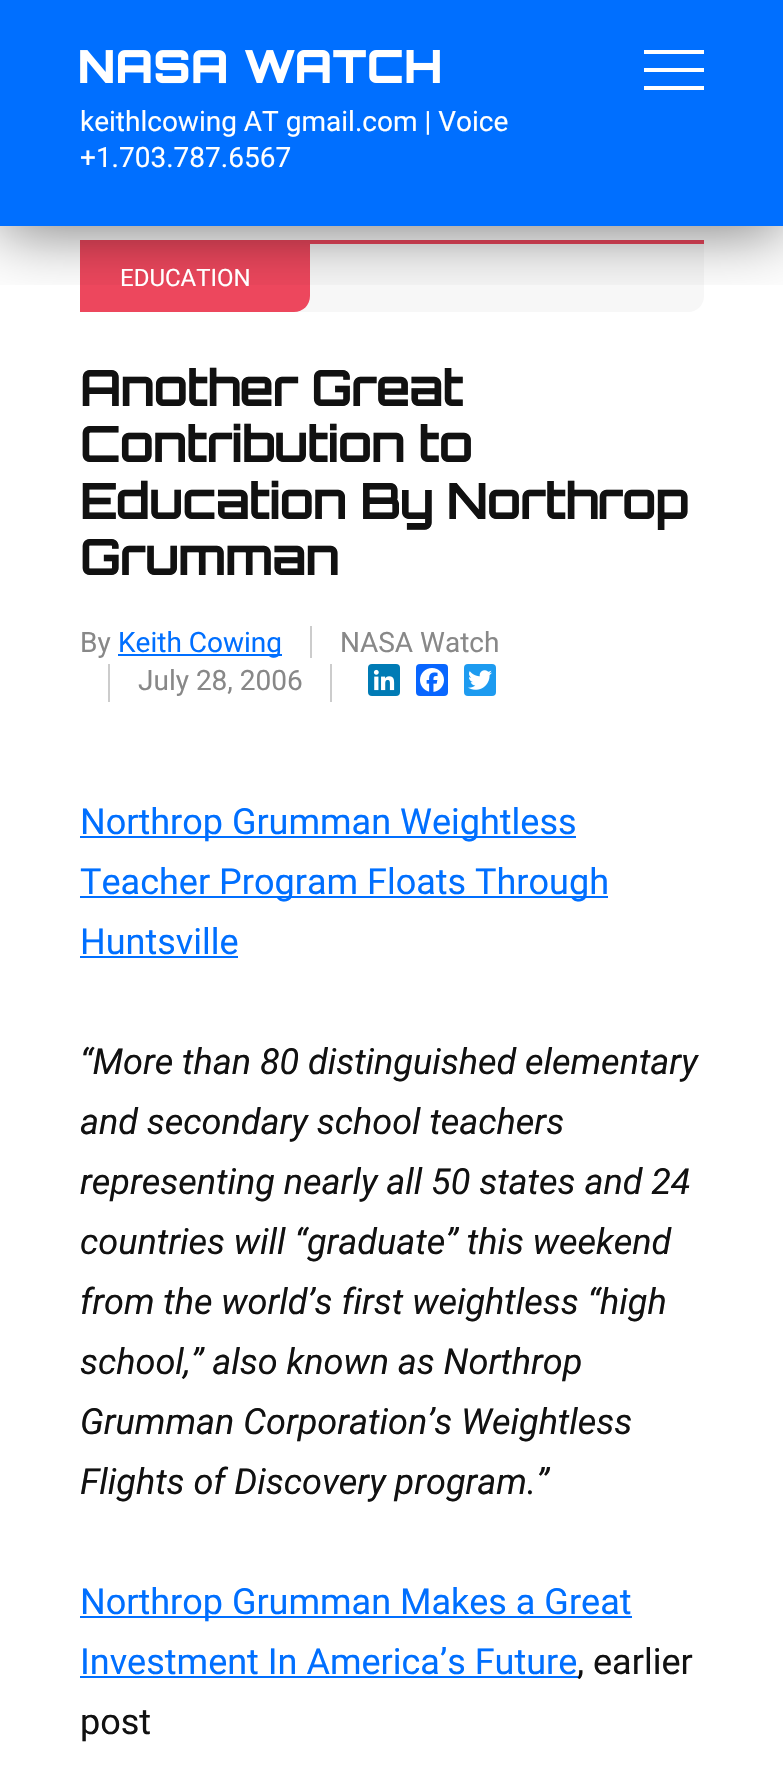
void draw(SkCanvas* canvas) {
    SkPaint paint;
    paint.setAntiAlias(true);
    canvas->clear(0xFFFFFFFF);
    paint.setColor(0xFF006FFF);
    canvas->drawRect(SkRect::MakeXYWH(0, 0, 783, 226), paint);
    paint.setColor(0xFFF7F7F7);
    canvas->drawPath(SkPathBuilder().moveTo(80, 240).lineTo(704, 240).lineTo(704, 296).cubicTo(704, 305, 697, 312, 688, 312).lineTo(80, 312).close().detach(), paint);
    paint.setColor(0xFFED475D);
    canvas->drawRect(SkRect::MakeXYWH(80, 240, 624, 4), paint);
    canvas->drawPath(SkPathBuilder().moveTo(80, 244).lineTo(310, 244).lineTo(310, 296).cubicTo(310, 305, 303, 312, 294, 312).lineTo(80, 312).close().detach(), paint);
    canvas->save();
    canvas->clipRect(SkRect::MakeXYWH(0, 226, 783, 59));
    paint.setColor(0x82000000);
    paint.setMaskFilter(SkMaskFilter::MakeBlur(kNormal_SkBlurStyle, 30));
    canvas->drawRect(SkRect::MakeXYWH(0, 6, 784, 226), paint);
    paint.setMaskFilter(nullptr);
    canvas->restore();
    paint.setColor(0xFFFFFFFF);
    canvas->drawRect(SkRect::MakeXYWH(644, 68, 60, 4), paint);
    canvas->drawRect(SkRect::MakeXYWH(644, 50, 60, 4), paint);
    canvas->drawRect(SkRect::MakeXYWH(644, 86, 60, 4), paint);
    canvas->drawImageRect(SkImages::DeferredFromEncodedData(SkData::MakeFromFileName("img1.png")), SkRect::MakeXYWH(80, 50, 360, 34), SkSamplingOptions());
    SkFont font1(fontMgr->matchFamilyStyle("Roboto", SkFontStyle::Normal()), 28);
    font1.setSubpixel(true);
    canvas->drawString("keithlcowing AT gmail.com | Voice", 80, 131, font1, paint);
    canvas->drawString("+1.703.787.6567", 80, 167, font1, paint);
    SkFont font2(fontMgr->matchFamilyStyle("Roboto", SkFontStyle::Normal()), 24);
    font2.setSubpixel(true);
    canvas->drawString("EDUCATION", 120, 286, font2, paint);
    SkFont font3(fontMgr->matchFamilyStyle("Orbitron", SkFontStyle::Bold()), 48);
    font3.setSubpixel(true);
    paint.setColor(0xFF111111);
    canvas->drawString("Another Great", 80, 406, font3, paint);
    canvas->drawString("Contribution to", 80, 462, font3, paint);
    canvas->drawString("Education By Northrop", 80, 519, font3, paint);
    canvas->drawString("Grumman", 80, 575, font3, paint);
    paint.setColor(0xFF888888);
    canvas->drawString("By", 80, 652, font1, paint);
    paint.setColor(0xFF006FFF);
    canvas->drawRect(SkRect::MakeXYWH(118, 654, 164, 2), paint);
    canvas->drawString("Keith Cowing", 118, 652, font1, paint);
    paint.setColor(0xFFCCCCCC);
    canvas->drawRect(SkRect::MakeXYWH(310, 626, 2, 32), paint);
    paint.setColor(0xFF888888);
    canvas->drawString("NASA Watch", 340, 652, font1, paint);
    paint.setColor(0xFFCCCCCC);
    canvas->drawRect(SkRect::MakeXYWH(108, 664, 2, 38), paint);
    paint.setColor(0xFF888888);
    canvas->drawString("July 28, 2006", 138, 690, font1, paint);
    paint.setColor(0xFFCCCCCC);
    canvas->drawRect(SkRect::MakeXYWH(330, 664, 2, 38), paint);
    paint.setColor(0xFF007BB5);
    canvas->drawRoundRect(SkRect::MakeXYWH(368, 664, 32, 32), 4, 4, paint);
    canvas->drawImageRect(SkImages::DeferredFromEncodedData(SkData::MakeFromFileName("img2.png")), SkRect::MakeXYWH(373, 669, 22, 22), SkSamplingOptions());
    paint.setColor(0xFF0866FF);
    canvas->drawRoundRect(SkRect::MakeXYWH(416, 664, 32, 32), 4, 4, paint);
    canvas->drawImageRect(SkImages::DeferredFromEncodedData(SkData::MakeFromFileName("img3.png")), SkRect::MakeXYWH(420, 668, 24, 24), SkSamplingOptions());
    paint.setColor(0xFF1D9BF0);
    canvas->drawRoundRect(SkRect::MakeXYWH(464, 664, 32, 32), 4, 4, paint);
    canvas->drawImageRect(SkImages::DeferredFromEncodedData(SkData::MakeFromFileName("img4.png")), SkRect::MakeXYWH(468, 670, 24, 20), SkSamplingOptions());
    paint.setColor(0xFF006FFF);
    canvas->drawRect(SkRect::MakeXYWH(80, 836, 496, 2), paint);
    SkFont font4(fontMgr->matchFamilyStyle("Roboto", SkFontStyle::Normal()), 36);
    font4.setSubpixel(true);
    canvas->drawString("Northrop Grumman Weightless", 80, 834, font4, paint);
    canvas->drawRect(SkRect::MakeXYWH(80, 896, 528, 2), paint);
    canvas->drawString("Teacher Program Floats Through", 80, 894, font4, paint);
    canvas->drawString("Huntsville", 80, 954, font4, paint);
    canvas->drawRect(SkRect::MakeXYWH(80, 956, 158, 2), paint);
    SkFont font5(fontMgr->matchFamilyStyle("Roboto", SkFontStyle::Italic()), 36);
    font5.setSubpixel(true);
    paint.setColor(0xFF111111);
    canvas->drawString("“More than 80 distinguished elementary", 80, 1074, font5, paint);
    canvas->drawString("and secondary school teachers", 80, 1134, font5, paint);
    canvas->drawString("representing nearly all 50 states and 24", 80, 1194, font5, paint);
    canvas->drawString("countries will “graduate” this weekend", 80, 1254, font5, paint);
    canvas->drawString("from the world’s first weightless “high", 80, 1314, font5, paint);
    canvas->drawString("school,” also known as Northrop", 80, 1374, font5, paint);
    canvas->drawString("Grumman Corporation’s Weightless", 80, 1434, font5, paint);
    canvas->drawString("Flights of Discovery program.”", 80, 1494, font5, paint);
    paint.setColor(0xFF006FFF);
    canvas->drawRect(SkRect::MakeXYWH(80, 1616, 552, 2), paint);
    canvas->drawString("Northrop Grumman Makes a Great", 80, 1614, font4, paint);
    canvas->drawString("Investment In America’s Future", 80, 1674, font4, paint);
    canvas->drawRect(SkRect::MakeXYWH(80, 1676, 498, 2), paint);
    paint.setColor(0xFF111111);
    canvas->drawString(", earlier", 577, 1674, font4, paint);
    canvas->drawString("post", 80, 1734, font4, paint);
}
